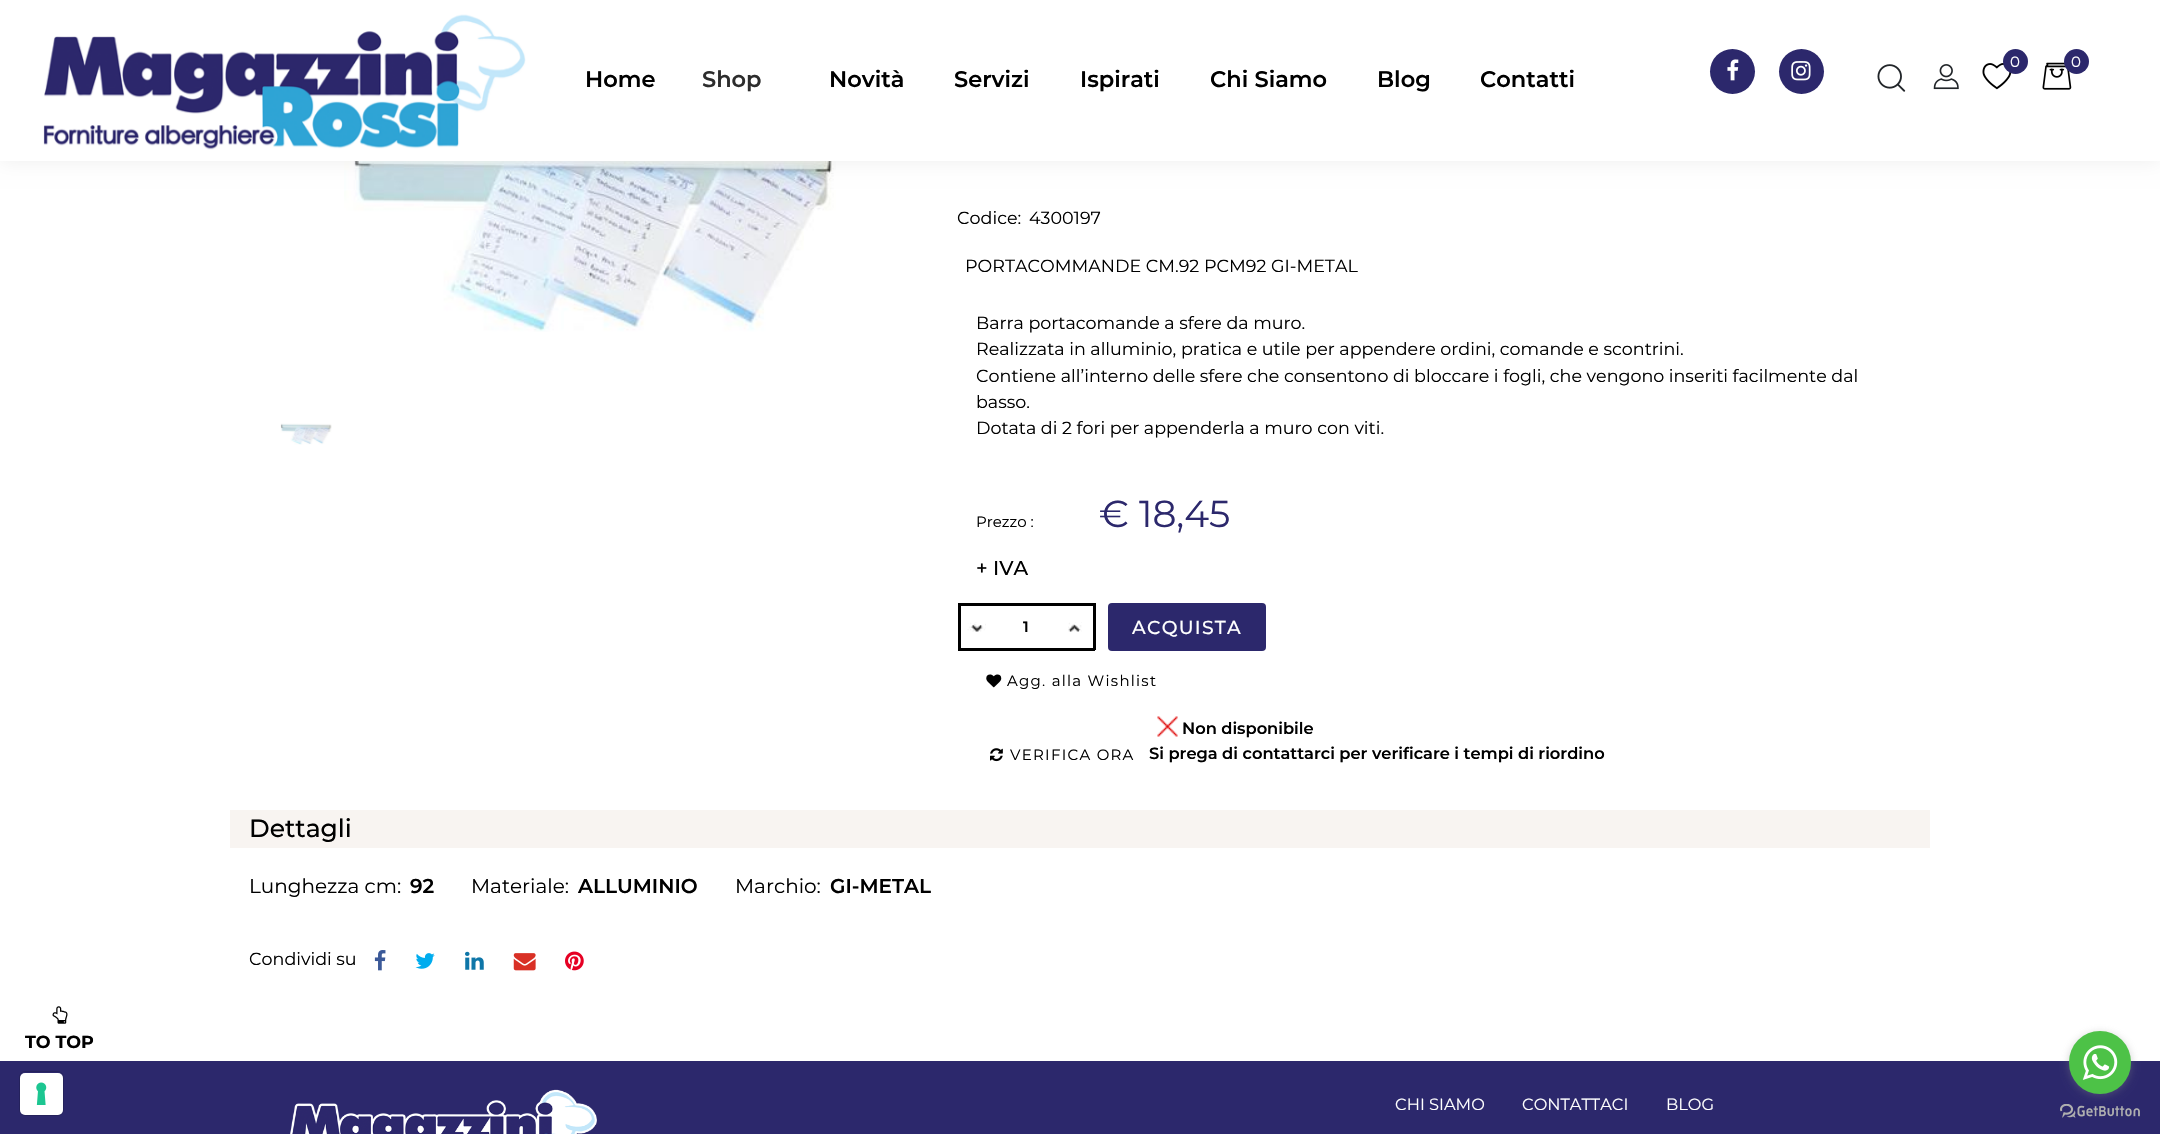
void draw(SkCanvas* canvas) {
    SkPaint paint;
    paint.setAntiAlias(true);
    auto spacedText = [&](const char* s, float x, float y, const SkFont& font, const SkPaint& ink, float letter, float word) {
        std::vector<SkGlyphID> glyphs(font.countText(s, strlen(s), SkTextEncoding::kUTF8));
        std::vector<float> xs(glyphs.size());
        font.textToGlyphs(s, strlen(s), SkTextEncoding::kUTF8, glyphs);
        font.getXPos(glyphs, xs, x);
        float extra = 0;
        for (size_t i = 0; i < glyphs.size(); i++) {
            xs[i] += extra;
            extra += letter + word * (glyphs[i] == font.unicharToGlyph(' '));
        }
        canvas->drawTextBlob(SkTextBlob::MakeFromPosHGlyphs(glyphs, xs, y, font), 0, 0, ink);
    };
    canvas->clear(0xFFFFFFFF);
    canvas->drawImageRect(SkImages::DeferredFromEncodedData(SkData::MakeFromFileName("img8.png")), SkRect::MakeXYWH(344, 161, 492, 171), SkSamplingOptions());
    paint.setColor(0xFFEEEEEE);
    paint.setMaskFilter(SkMaskFilter::MakeBlur(kNormal_SkBlurStyle, 9.5f));
    canvas->drawRect(SkRect::MakeXYWH(0, 0, 2160, 161), paint);
    paint.setMaskFilter(nullptr);
    paint.setColor(0xFFFFFFFF);
    canvas->drawRect(SkRect::MakeXYWH(0, 0, 2160, 161), paint);
    canvas->drawImageRect(SkImages::DeferredFromEncodedData(SkData::MakeFromFileName("img1.png")), SkRect::MakeXYWH(43, 14, 483, 136), SkSamplingOptions());
    paint.setColor(0xFF2C286C);
    canvas->drawCircle(1732.5f, 71.5f, 22.5f, paint);
    canvas->drawImageRect(SkImages::DeferredFromEncodedData(SkData::MakeFromFileName("img2.png")), SkRect::MakeXYWH(1727, 59, 12, 22), SkSamplingOptions());
    canvas->drawCircle(1801.5f, 71.5f, 22.5f, paint);
    canvas->drawImageRect(SkImages::DeferredFromEncodedData(SkData::MakeFromFileName("img3.png")), SkRect::MakeXYWH(1791, 61, 20, 20), SkSamplingOptions());
    canvas->drawImageRect(SkImages::DeferredFromEncodedData(SkData::MakeFromFileName("img4.png")), SkRect::MakeXYWH(1982, 63, 30, 27), SkSamplingOptions());
    canvas->drawCircle(2015.5f, 61.5f, 12.5f, paint);
    SkFont font1(fontMgr->matchFamilyStyle("Montserrat", SkFontStyle::Normal()), 15);
    font1.setSubpixel(true);
    paint.setColor(0xFFFFFFFF);
    canvas->drawString("0", 2010, 67, font1, paint);
    canvas->drawImageRect(SkImages::DeferredFromEncodedData(SkData::MakeFromFileName("img5.png")), SkRect::MakeXYWH(2042, 62, 30, 28), SkSamplingOptions());
    paint.setColor(0xFF2C286C);
    canvas->drawCircle(2076.5f, 61.5f, 12.5f, paint);
    paint.setColor(0xFFFFFFFF);
    canvas->drawString("0", 2071, 67, font1, paint);
    canvas->drawImageRect(SkImages::DeferredFromEncodedData(SkData::MakeFromFileName("img6.png")), SkRect::MakeXYWH(1877, 64, 29, 28), SkSamplingOptions());
    canvas->drawImageRect(SkImages::DeferredFromEncodedData(SkData::MakeFromFileName("img7.png")), SkRect::MakeXYWH(1933, 64, 26, 26), SkSamplingOptions());
    SkFont font2(fontMgr->matchFamilyStyle("Montserrat", SkFontStyle(600, SkFontStyle::kNormal_Width, SkFontStyle::kUpright_Slant)), 22.5f);
    font2.setSubpixel(true);
    paint.setColor(0xFF000000);
    canvas->drawString("Home", 585, 87, font2, paint);
    paint.setColor(0xFF2D2D2D);
    canvas->drawString("Shop", 702, 87, font2, paint);
    paint.setColor(0xFF000000);
    canvas->drawString("Novità", 829, 87, font2, paint);
    canvas->drawString("Servizi", 954, 87, font2, paint);
    canvas->drawString("Ispirati", 1080, 87, font2, paint);
    canvas->drawString("Chi Siamo", 1210, 87, font2, paint);
    canvas->drawString("Blog", 1377, 87, font2, paint);
    canvas->drawString("Contatti", 1480, 87, font2, paint);
    canvas->drawImageRect(SkImages::DeferredFromEncodedData(SkData::MakeFromFileName("img9.png")), SkRect::MakeXYWH(280, 423, 52, 22), SkSamplingOptions());
    SkFont font3(fontMgr->matchFamilyStyle("Montserrat", SkFontStyle::Normal()), 17.5f);
    font3.setSubpixel(true);
    canvas->drawString("Codice:", 957, 224, font3, paint);
    canvas->drawString("4300197", 1029, 224, font3, paint);
    canvas->drawString("PORTACOMMANDE CM.92 PCM92 GI-METAL", 965, 272, font3, paint);
    canvas->drawString("Barra portacomande a sfere da muro.", 976, 329, font3, paint);
    canvas->drawString("Realizzata in alluminio, pratica e utile per appendere ordini, comande e scontrini.", 976, 355, font3, paint);
    canvas->drawString("Contiene all’interno delle sfere che consentono di bloccare i fogli, che vengono inseriti facilmente dal", 976, 382, font3, paint);
    canvas->drawString("basso.", 976, 408, font3, paint);
    canvas->drawString("Dotata di 2 fori per appenderla a muro con viti.", 976, 434, font3, paint);
    canvas->drawString("Prezzo :", 976, 527, font1, paint);
    SkFont font4(fontMgr->matchFamilyStyle("Montserrat", SkFontStyle::Normal()), 37.5f);
    font4.setSubpixel(true);
    paint.setColor(0xFF2C286C);
    canvas->drawString("€ 18,45", 1099, 527, font4, paint);
    SkFont font5(fontMgr->matchFamilyStyle("Montserrat", SkFontStyle(500, SkFontStyle::kNormal_Width, SkFontStyle::kUpright_Slant)), 20);
    font5.setSubpixel(true);
    paint.setColor(0xFF000000);
    canvas->drawString("+ IVA", 976, 575, font5, paint);
    canvas->drawImageRect(SkImages::DeferredFromEncodedData(SkData::MakeFromFileName("img10.png")), SkRect::MakeXYWH(967, 622, 19, 10), SkSamplingOptions());
    canvas->drawRect(SkRect::MakeXYWH(958, 603, 137, 3), paint);
    canvas->drawRect(SkRect::MakeXYWH(958, 648, 100, 3), paint);
    canvas->drawRect(SkRect::MakeXYWH(958, 603, 3, 47), paint);
    SkFont font6(fontMgr->matchFamilyStyle("Montserrat", SkFontStyle(600, SkFontStyle::kNormal_Width, SkFontStyle::kUpright_Slant)), 15);
    font6.setSubpixel(true);
    canvas->drawString("1", 1023, 632, font6, paint);
    canvas->drawImageRect(SkImages::DeferredFromEncodedData(SkData::MakeFromFileName("img11.png")), SkRect::MakeXYWH(1068, 622, 14, 10), SkSamplingOptions());
    canvas->drawRect(SkRect::MakeXYWH(1093, 603, 3, 47), paint);
    canvas->drawRect(SkRect::MakeXYWH(1058, 648, 37, 3), paint);
    paint.setColor(0xFF2C286C);
    canvas->drawRoundRect(SkRect::MakeXYWH(1108, 603, 158, 48), 4, 4, paint);
    SkFont font7(fontMgr->matchFamilyStyle("Montserrat", SkFontStyle(500, SkFontStyle::kNormal_Width, SkFontStyle::kUpright_Slant)), 18.75f);
    font7.setSubpixel(true);
    paint.setColor(0xFFFFFFFF);
    spacedText("ACQUISTA", 1132, 634, font7, paint, 1.25f, 0);
    canvas->drawImageRect(SkImages::DeferredFromEncodedData(SkData::MakeFromFileName("img12.png")), SkRect::MakeXYWH(986, 674, 16, 14), SkSamplingOptions());
    paint.setColor(0xFF000000);
    spacedText("Agg. alla Wishlist", 1007, 686, font1, paint, 1.25f, 0);
    canvas->drawImageRect(SkImages::DeferredFromEncodedData(SkData::MakeFromFileName("img13.png")), SkRect::MakeXYWH(990, 748, 13, 14), SkSamplingOptions());
    spacedText("VERIFICA ORA", 1010, 760, font1, paint, 1.25f, 0);
    canvas->drawImageRect(SkImages::DeferredFromEncodedData(SkData::MakeFromFileName("img14.png")), SkRect::MakeXYWH(1157, 716, 21, 21), SkSamplingOptions());
    SkFont font8(fontMgr->matchFamilyStyle("Montserrat", SkFontStyle(600, SkFontStyle::kNormal_Width, SkFontStyle::kUpright_Slant)), 16.25f);
    font8.setSubpixel(true);
    canvas->drawString("Non disponibile", 1182, 734, font8, paint);
    canvas->drawString("Si prega di contattarci per verificare i tempi di riordino", 1149, 759, font8, paint);
    paint.setColor(0xFFF8F4F1);
    canvas->drawRect(SkRect::MakeXYWH(230, 810, 1700, 38), paint);
    SkFont font9(fontMgr->matchFamilyStyle("Montserrat", SkFontStyle(500, SkFontStyle::kNormal_Width, SkFontStyle::kUpright_Slant)), 25);
    font9.setSubpixel(true);
    paint.setColor(0xFF000000);
    canvas->drawString("Dettagli", 249, 837, font9, paint);
    SkFont font10(fontMgr->matchFamilyStyle("Montserrat", SkFontStyle::Normal()), 20);
    font10.setSubpixel(true);
    canvas->drawString("Lunghezza cm:", 249, 893, font10, paint);
    SkFont font11(fontMgr->matchFamilyStyle("Montserrat", SkFontStyle(600, SkFontStyle::kNormal_Width, SkFontStyle::kUpright_Slant)), 20);
    font11.setSubpixel(true);
    canvas->drawString("92", 410, 893, font11, paint);
    canvas->drawString("Materiale:", 471, 893, font10, paint);
    canvas->drawString("ALLUMINIO", 578, 893, font11, paint);
    canvas->drawString("Marchio:", 735, 893, font10, paint);
    canvas->drawString("GI-METAL", 830, 893, font11, paint);
    canvas->drawString("Condividi su", 249, 965, font3, paint);
    canvas->drawImageRect(SkImages::DeferredFromEncodedData(SkData::MakeFromFileName("img15.png")), SkRect::MakeXYWH(374, 950, 12, 21), SkSamplingOptions());
    canvas->drawImageRect(SkImages::DeferredFromEncodedData(SkData::MakeFromFileName("img16.png")), SkRect::MakeXYWH(415, 953, 20, 16), SkSamplingOptions());
    canvas->drawImageRect(SkImages::DeferredFromEncodedData(SkData::MakeFromFileName("img17.png")), SkRect::MakeXYWH(465, 951, 19, 19), SkSamplingOptions());
    canvas->drawImageRect(SkImages::DeferredFromEncodedData(SkData::MakeFromFileName("img18.png")), SkRect::MakeXYWH(513, 953, 23, 18), SkSamplingOptions());
    canvas->drawImageRect(SkImages::DeferredFromEncodedData(SkData::MakeFromFileName("img19.png")), SkRect::MakeXYWH(565, 951, 19, 20), SkSamplingOptions());
    canvas->drawImageRect(SkImages::DeferredFromEncodedData(SkData::MakeFromFileName("img20.png")), SkRect::MakeXYWH(52, 1006, 16, 18), SkSamplingOptions());
    SkFont font12(fontMgr->matchFamilyStyle("Montserrat", SkFontStyle::Bold()), 17.5f);
    font12.setSubpixel(true);
    canvas->drawString("TO TOP", 25, 1048, font12, paint);
    paint.setColor(0xFF2C286C);
    canvas->drawRect(SkRect::MakeXYWH(0, 1061, 2160, 73), paint);
    canvas->drawImageRect(SkImages::DeferredFromEncodedData(SkData::MakeFromFileName("img21.png")), SkRect::MakeXYWH(290, 1089, 307, 45), SkSamplingOptions());
    SkFont font13(fontMgr->matchFamilyStyle("Montserrat", SkFontStyle::Normal()), 16.25f);
    font13.setSubpixel(true);
    paint.setColor(0xFFFFFFFF);
    canvas->drawString("CHI SIAMO", 1395, 1110, font13, paint);
    canvas->drawString("CONTATTACI", 1522, 1110, font13, paint);
    canvas->drawString("BLOG", 1666, 1110, font13, paint);
    canvas->drawImageRect(SkImages::DeferredFromEncodedData(SkData::MakeFromFileName("img23.png")), SkRect::MakeXYWH(2060, 1104, 80, 14), SkSamplingOptions());
    paint.setColor(0x66888888);
    paint.setMaskFilter(SkMaskFilter::MakeBlur(kNormal_SkBlurStyle, 4.5f));
    canvas->drawRoundRect(SkRect::MakeXYWH(2069, 1033, 62, 62), 31, 31, paint);
    paint.setMaskFilter(nullptr);
    paint.setColor(0xFF4DC247);
    canvas->drawRoundRect(SkRect::MakeXYWH(2069, 1031, 62, 63), 31, 31, paint);
    canvas->drawImageRect(SkImages::DeferredFromEncodedData(SkData::MakeFromFileName("img22.png")), SkRect::MakeXYWH(2082, 1045, 36, 35), SkSamplingOptions());
    paint.setStyle(SkPaint::kStroke_Style);
    paint.setStrokeWidth(1);
    paint.setColor(0xFF25225C);
    canvas->drawRoundRect(SkRect::MakeXYWH(19.5f, 1071.5f, 44, 44), 5.5f, 5.5f, paint);
    paint.setStyle(SkPaint::kFill_Style);
    paint.setColor(0xFFFFFFFF);
    canvas->drawRoundRect(SkRect::MakeXYWH(20, 1073, 43, 42), 5, 5, paint);
    canvas->drawImageRect(SkImages::DeferredFromEncodedData(SkData::MakeFromFileName("img24.png")), SkRect::MakeXYWH(36, 1082, 11, 23), SkSamplingOptions());
}
